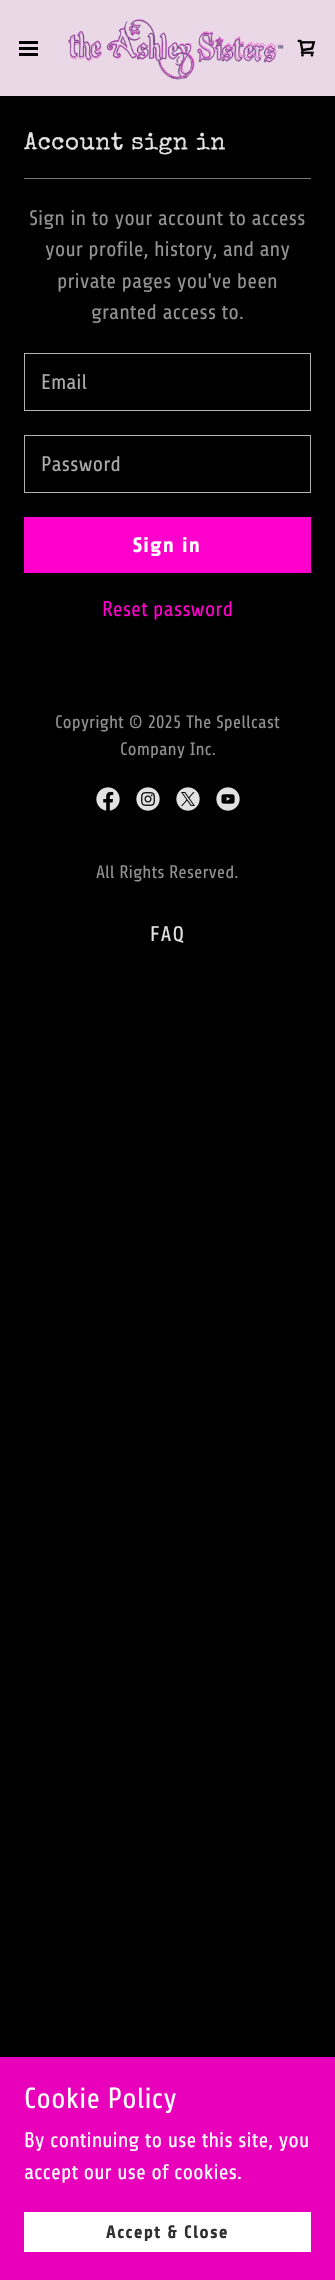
void draw(SkCanvas* canvas) {
    SkPaint paint;
    paint.setAntiAlias(true);
    auto spacedText = [&](const char* s, float x, float y, const SkFont& font, const SkPaint& ink, float letter, float word) {
        std::vector<SkGlyphID> glyphs(font.countText(s, strlen(s), SkTextEncoding::kUTF8));
        std::vector<float> xs(glyphs.size());
        font.textToGlyphs(s, strlen(s), SkTextEncoding::kUTF8, glyphs);
        font.getXPos(glyphs, xs, x);
        float extra = 0;
        for (size_t i = 0; i < glyphs.size(); i++) {
            xs[i] += extra;
            extra += letter + word * (glyphs[i] == font.unicharToGlyph(' '));
        }
        canvas->drawTextBlob(SkTextBlob::MakeFromPosHGlyphs(glyphs, xs, y, font), 0, 0, ink);
    };
    canvas->clear(0xFF000000);
    paint.setColor(0xFFEBD8E7);
    canvas->drawRect(SkRect::MakeXYWH(0, 0, 335, 96), paint);
    paint.setColor(0xFF000000);
    canvas->drawRect(SkRect::MakeXYWH(19, 41, 19, 3), paint);
    canvas->drawRect(SkRect::MakeXYWH(19, 47, 19, 3), paint);
    canvas->drawRect(SkRect::MakeXYWH(19, 53, 19, 3), paint);
    canvas->drawImageRect(SkImages::DeferredFromEncodedData(SkData::MakeFromFileName("img1.png")), SkRect::MakeXYWH(68, 19, 216, 61), SkSamplingOptions());
    canvas->drawImageRect(SkImages::DeferredFromEncodedData(SkData::MakeFromFileName("img2.png")), SkRect::MakeXYWH(297, 39, 19, 18), SkSamplingOptions());
    SkFont font1(fontMgr->matchFamilyStyle("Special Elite", SkFontStyle::Normal()), 24);
    font1.setSubpixel(true);
    paint.setColor(0xFFE2E2E2);
    spacedText("Account sign in", 24, 149, font1, paint, 0.5f, 0);
    paint.setColor(0xFF777777);
    canvas->drawRect(SkRect::MakeXYWH(24, 178, 287, 1), paint);
    SkFont font2(fontMgr->matchFamilyStyle("Share", SkFontStyle::Normal()), 21);
    font2.setSubpixel(true);
    paint.setColor(0xFF919191);
    canvas->drawString("Sign in to your account to access", 29, 225, font2, paint);
    canvas->drawString("your profile, history, and any", 45, 256, font2, paint);
    canvas->drawString("private pages you've been", 57, 288, font2, paint);
    canvas->drawString("granted access to.", 91, 319, font2, paint);
    paint.setStyle(SkPaint::kStroke_Style);
    paint.setStrokeWidth(1);
    paint.setColor(0xFFB3B3B3);
    canvas->drawRect(SkRect::MakeXYWH(24.5f, 353.5f, 286, 57), paint);
    paint.setStyle(SkPaint::kFill_Style);
    paint.setColor(0xFFABABAB);
    canvas->drawString("Email", 41, 389, font2, paint);
    paint.setStyle(SkPaint::kStroke_Style);
    paint.setColor(0xFFB3B3B3);
    canvas->drawRect(SkRect::MakeXYWH(24.5f, 435.5f, 286, 57), paint);
    paint.setStyle(SkPaint::kFill_Style);
    paint.setColor(0xFFABABAB);
    canvas->drawString("Password", 41, 471, font2, paint);
    paint.setColor(0xFFFF00CC);
    canvas->drawRect(SkRect::MakeXYWH(24, 517, 287, 56), paint);
    SkFont font3(fontMgr->matchFamilyStyle("Share", SkFontStyle::Bold()), 21);
    font3.setSubpixel(true);
    paint.setColor(0xFFFFFFFF);
    spacedText("Sign in", 133, 552, font3, paint, 1.25f, 0);
    paint.setColor(0xFFFF00CC);
    canvas->drawString("Reset password", 102, 616, font2, paint);
    SkFont font4(fontMgr->matchFamilyStyle("Share", SkFontStyle::Normal()), 18);
    font4.setSubpixel(true);
    paint.setColor(0xFF919191);
    canvas->drawString("Copyright © 2025 The Spellcast", 55, 728, font4, paint);
    canvas->drawString("Company Inc.", 120, 755, font4, paint);
    canvas->drawImageRect(SkImages::DeferredFromEncodedData(SkData::MakeFromFileName("img3.png")), SkRect::MakeXYWH(96, 787, 24, 24), SkSamplingOptions());
    canvas->drawImageRect(SkImages::DeferredFromEncodedData(SkData::MakeFromFileName("img4.png")), SkRect::MakeXYWH(136, 787, 24, 24), SkSamplingOptions());
    canvas->drawImageRect(SkImages::DeferredFromEncodedData(SkData::MakeFromFileName("img5.png")), SkRect::MakeXYWH(176, 787, 24, 24), SkSamplingOptions());
    canvas->drawImageRect(SkImages::DeferredFromEncodedData(SkData::MakeFromFileName("img6.png")), SkRect::MakeXYWH(216, 787, 24, 24), SkSamplingOptions());
    canvas->drawString("All Rights Reserved.", 96, 878, font4, paint);
    paint.setColor(0xFFE2E2E2);
    spacedText("FAQ", 150, 941, font2, paint, 1.25f, 0);
    paint.setColor(0xFFE800BA);
    canvas->drawRect(SkRect::MakeXYWH(0, 2057, 335, 223), paint);
    SkFont font5(fontMgr->matchFamilyStyle("Share", SkFontStyle::Normal()), 29);
    font5.setSubpixel(true);
    paint.setColor(0xFFFFFFFF);
    canvas->drawString("Cookie Policy", 24, 2108, font5, paint);
    canvas->drawString("By continuing to use this site, you", 24, 2147, font2, paint);
    canvas->drawString("accept our use of cookies.", 24, 2179, font2, paint);
    canvas->drawRect(SkRect::MakeXYWH(24, 2212, 287, 40), paint);
    SkFont font6(fontMgr->matchFamilyStyle("Share", SkFontStyle::Bold()), 18);
    font6.setSubpixel(true);
    paint.setColor(0xFF303030);
    spacedText("Accept & Close", 106, 2238, font6, paint, 1.1f, 0);
}
